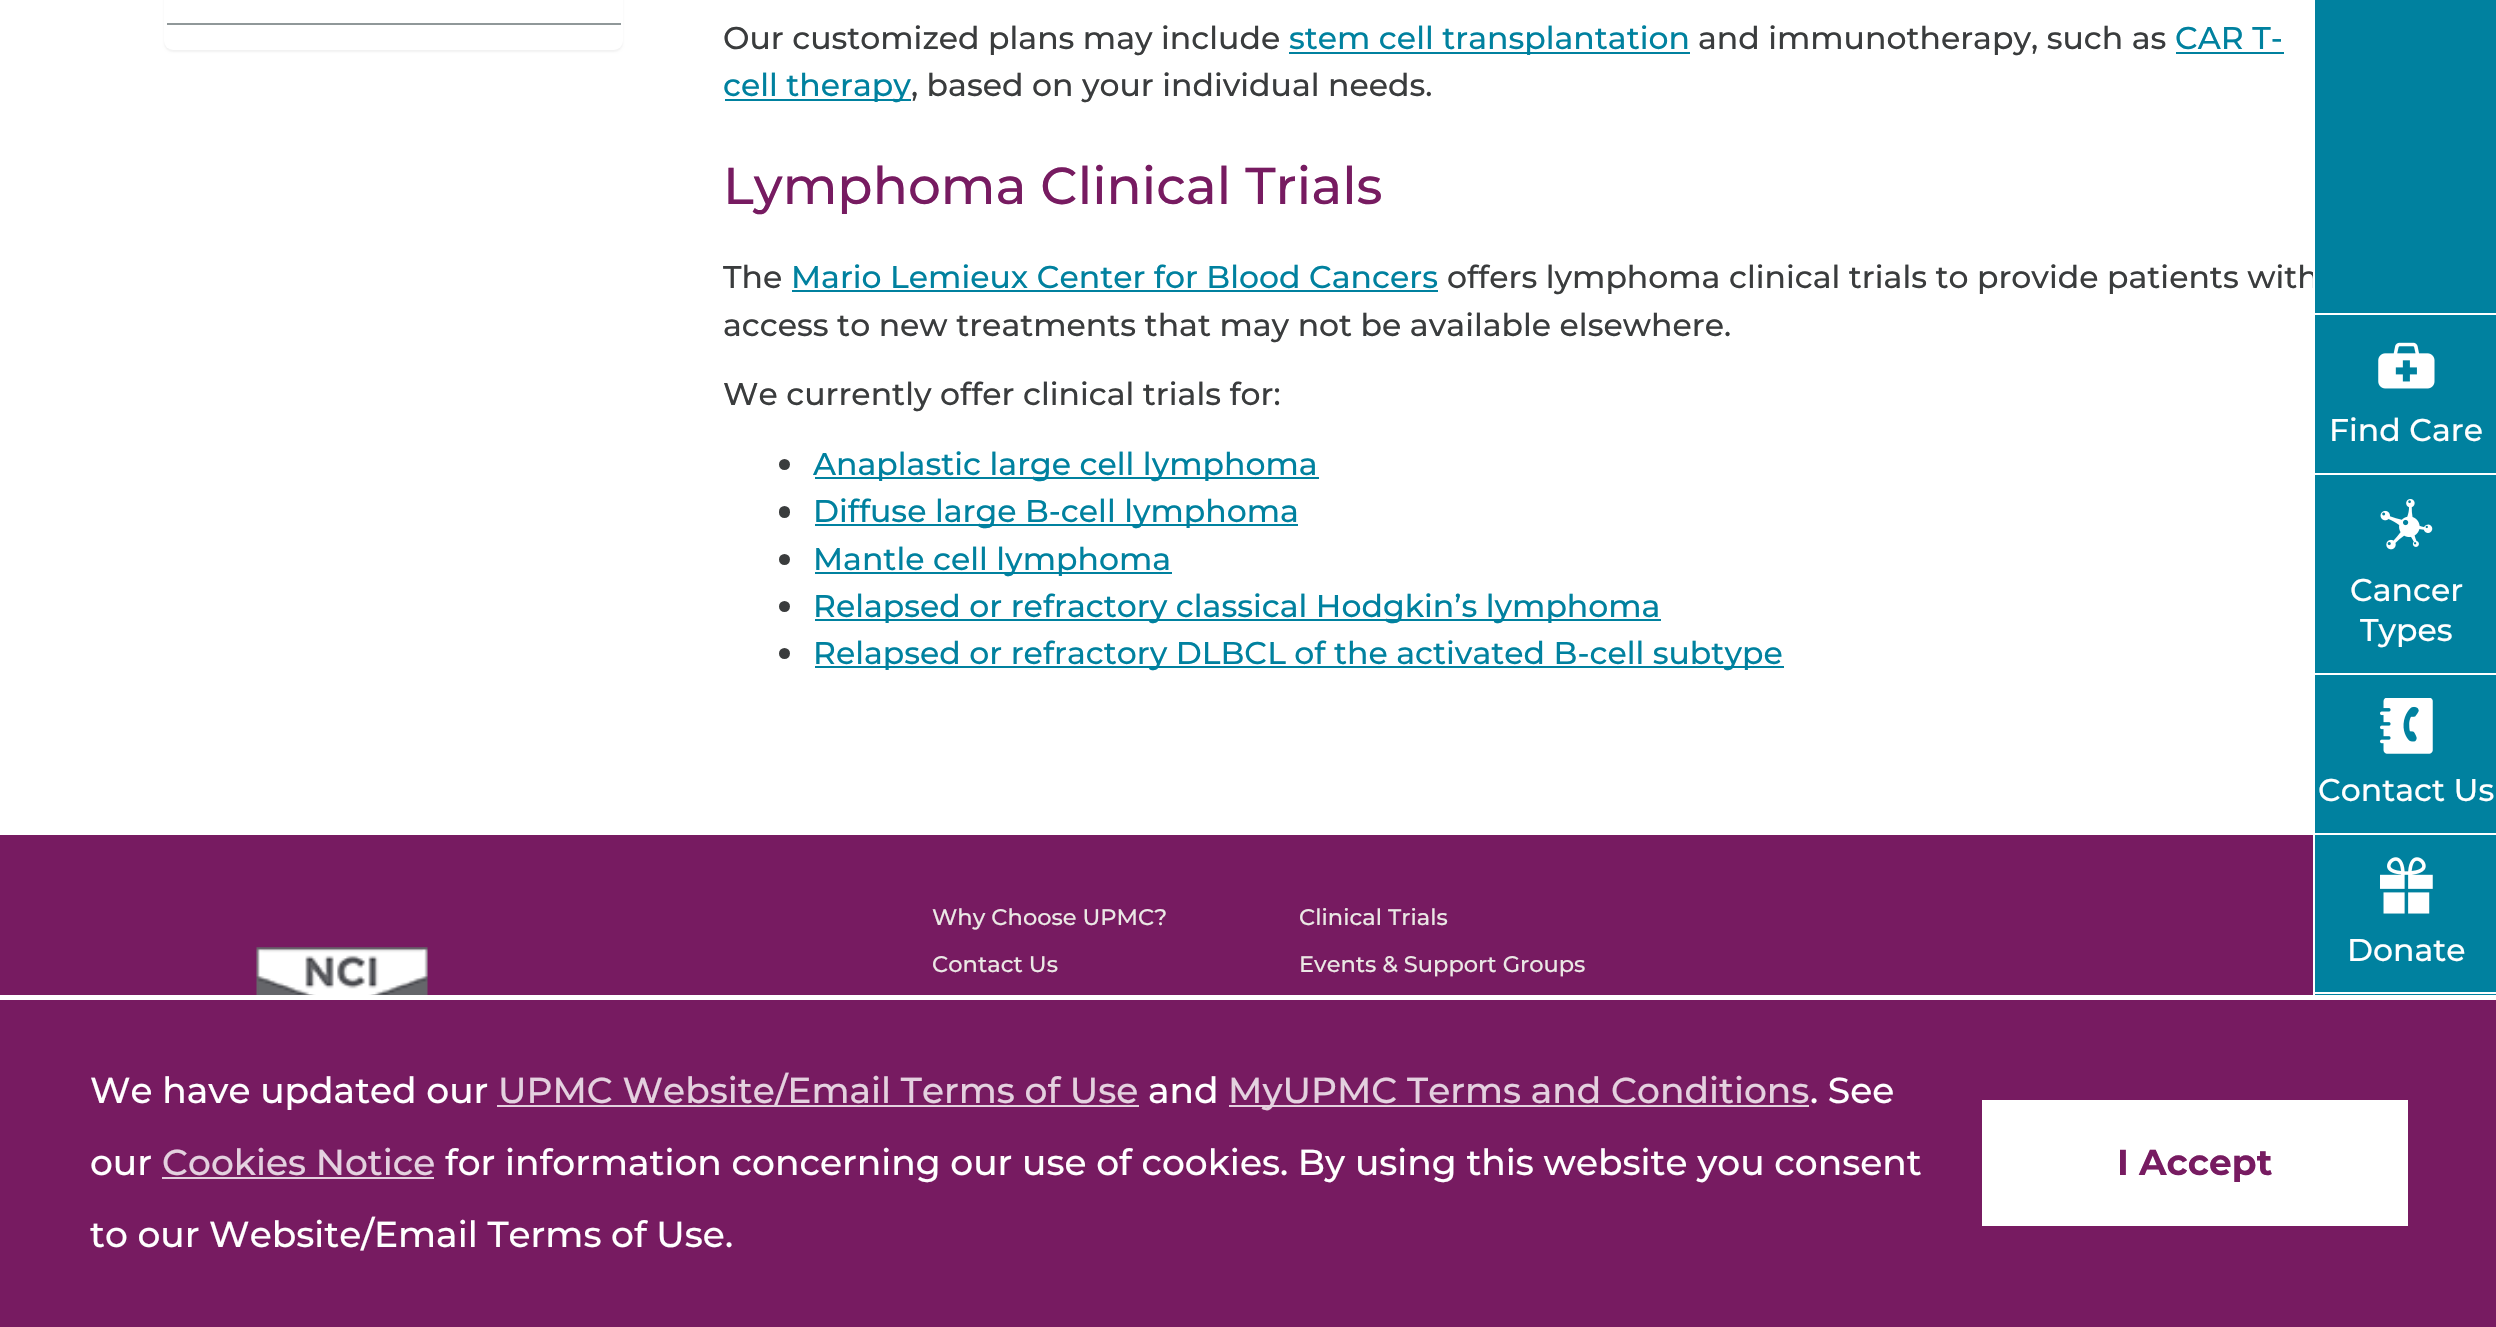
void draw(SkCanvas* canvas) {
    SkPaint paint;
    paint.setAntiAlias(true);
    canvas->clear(0xFFFFFFFF);
    paint.setColor(0x0D000000);
    paint.setMaskFilter(SkMaskFilter::MakeBlur(kNormal_SkBlurStyle, 1));
    canvas->drawRoundRect(SkRect::MakeXYWH(164, -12, 459, 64), 9, 9, paint);
    paint.setMaskFilter(nullptr);
    paint.setColor(0xFFFFFFFF);
    canvas->drawRoundRect(SkRect::MakeXYWH(164, -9, 459, 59), 9, 9, paint);
    paint.setColor(0xFF909899);
    canvas->drawRect(SkRect::MakeXYWH(167, 23, 454, 2), paint);
    SkFont font1(fontMgr->matchFamilyStyle("Montserrat", SkFontStyle(100, SkFontStyle::kNormal_Width, SkFontStyle::kUpright_Slant)), 31.5f);
    font1.setSubpixel(true);
    paint.setColor(0xFF3A3C3D);
    canvas->drawString("Our customized plans may include", 723, 49, font1, paint);
    paint.setColor(0xFF00819F);
    canvas->drawRect(SkRect::MakeXYWH(1289, 52, 401, 2), paint);
    canvas->drawString("stem cell transplantation", 1289, 49, font1, paint);
    paint.setColor(0xFF3A3C3D);
    canvas->drawString("and immunotherapy, such as", 1698, 49, font1, paint);
    paint.setColor(0xFF00819F);
    canvas->drawString("CAR T-", 2175, 49, font1, paint);
    canvas->drawRect(SkRect::MakeXYWH(2176, 52, 108, 2), paint);
    canvas->drawRect(SkRect::MakeXYWH(725, 99, 186, 2), paint);
    canvas->drawString("cell therapy", 723, 96, font1, paint);
    paint.setColor(0xFF3A3C3D);
    canvas->drawString(", based on your individual needs.", 911, 96, font1, paint);
    SkFont font2(fontMgr->matchFamilyStyle("Montserrat", SkFontStyle(100, SkFontStyle::kNormal_Width, SkFontStyle::kUpright_Slant)), 51.75f);
    font2.setSubpixel(true);
    paint.setColor(0xFF771B61);
    canvas->drawString("Lymphoma Clinical Trials", 723, 204, font2, paint);
    paint.setColor(0xFF3A3C3D);
    canvas->drawString("The", 723, 288, font1, paint);
    paint.setColor(0xFF00819F);
    canvas->drawString("Mario Lemieux Center for Blood Cancers", 791, 288, font1, paint);
    canvas->drawRect(SkRect::MakeXYWH(792, 290, 646, 2), paint);
    paint.setColor(0xFF3A3C3D);
    canvas->drawString("offers lymphoma clinical trials to provide patients with", 1447, 288, font1, paint);
    canvas->drawString("access to new treatments that may not be available elsewhere.", 723, 336, font1, paint);
    canvas->drawString("We currently offer clinical trials for:", 723, 405, font1, paint);
    canvas->drawCircle(784.5f, 464.5f, 5.5f, paint);
    paint.setColor(0xFF00819F);
    canvas->drawRect(SkRect::MakeXYWH(815, 477, 504, 2), paint);
    canvas->drawString("Anaplastic large cell lymphoma", 813, 475, font1, paint);
    paint.setColor(0xFF3A3C3D);
    canvas->drawRoundRect(SkRect::MakeXYWH(779, 506, 11, 12), 5.5f, 5.5f, paint);
    paint.setColor(0xFF00819F);
    canvas->drawRect(SkRect::MakeXYWH(815, 524, 483, 2), paint);
    canvas->drawString("Diffuse large B-cell lymphoma", 813, 522, font1, paint);
    paint.setColor(0xFF3A3C3D);
    canvas->drawCircle(784.5f, 559.5f, 5.5f, paint);
    paint.setColor(0xFF00819F);
    canvas->drawRect(SkRect::MakeXYWH(815, 572, 357, 2), paint);
    canvas->drawString("Mantle cell lymphoma", 813, 570, font1, paint);
    paint.setColor(0xFF3A3C3D);
    canvas->drawCircle(784.5f, 606.5f, 5.5f, paint);
    paint.setColor(0xFF00819F);
    canvas->drawRect(SkRect::MakeXYWH(815, 619, 846, 2), paint);
    canvas->drawString("Relapsed or refractory classical Hodgkin’s lymphoma", 813, 617, font1, paint);
    paint.setColor(0xFF3A3C3D);
    canvas->drawCircle(784.5f, 653.5f, 5.5f, paint);
    paint.setColor(0xFF00819F);
    canvas->drawRect(SkRect::MakeXYWH(815, 666, 969, 2), paint);
    canvas->drawString("Relapsed or refractory DLBCL of the activated B-cell subtype", 813, 664, font1, paint);
    canvas->drawRect(SkRect::MakeXYWH(2315, 0, 181, 995), paint);
    paint.setColor(0xFFFFFFFF);
    canvas->drawRect(SkRect::MakeXYWH(2313, 272, 2, 16), paint);
    canvas->drawRect(SkRect::MakeXYWH(2315, 313, 181, 2), paint);
    canvas->drawRect(SkRect::MakeXYWH(2315, 473, 181, 2), paint);
    canvas->drawImageRect(SkImages::DeferredFromEncodedData(SkData::MakeFromFileName("img1.png")), SkRect::MakeXYWH(2378, 342, 57, 47), SkSamplingOptions());
    canvas->drawString("Find Care", 2329, 441, font1, paint);
    canvas->drawRect(SkRect::MakeXYWH(2315, 673, 181, 2), paint);
    canvas->drawImageRect(SkImages::DeferredFromEncodedData(SkData::MakeFromFileName("img2.png")), SkRect::MakeXYWH(2380, 499, 53, 51), SkSamplingOptions());
    canvas->drawString("Cancer", 2350, 601, font1, paint);
    canvas->drawString("Types", 2360, 641, font1, paint);
    canvas->drawRect(SkRect::MakeXYWH(2315, 833, 181, 2), paint);
    canvas->drawImageRect(SkImages::DeferredFromEncodedData(SkData::MakeFromFileName("img3.png")), SkRect::MakeXYWH(2380, 698, 53, 56), SkSamplingOptions());
    canvas->drawString("Contact Us", 2318, 801, font1, paint);
    canvas->drawRect(SkRect::MakeXYWH(2315, 992, 181, 2), paint);
    canvas->drawImageRect(SkImages::DeferredFromEncodedData(SkData::MakeFromFileName("img4.png")), SkRect::MakeXYWH(2380, 857, 53, 57), SkSamplingOptions());
    canvas->drawString("Donate", 2347, 961, font1, paint);
    paint.setColor(0xFF771B61);
    canvas->drawRect(SkRect::MakeXYWH(0, 835, 2313, 160), paint);
    canvas->drawImageRect(SkImages::DeferredFromEncodedData(SkData::MakeFromFileName("img5.png")), SkRect::MakeXYWH(256, 947, 172, 48), SkSamplingOptions());
    SkFont font3(fontMgr->matchFamilyStyle("Montserrat", SkFontStyle(100, SkFontStyle::kNormal_Width, SkFontStyle::kUpright_Slant)), 22.5f);
    font3.setSubpixel(true);
    paint.setColor(0xFFEBE8E5);
    canvas->drawString("Why Choose UPMC?", 932, 925, font3, paint);
    canvas->drawString("Contact Us", 932, 972, font3, paint);
    canvas->drawString("Clinical Trials", 1299, 925, font3, paint);
    canvas->drawString("Events & Support Groups", 1299, 972, font3, paint);
    paint.setColor(0xFF771B61);
    canvas->drawRect(SkRect::MakeXYWH(0, 1000, 2496, 327), paint);
    SkFont font4(fontMgr->matchFamilyStyle("Montserrat", SkFontStyle(100, SkFontStyle::kNormal_Width, SkFontStyle::kUpright_Slant)), 36);
    font4.setSubpixel(true);
    paint.setColor(0xFFFFFFFF);
    canvas->drawString("We have updated our", 90, 1103, font4, paint);
    paint.setColor(0xFFE4D1DF);
    canvas->drawRect(SkRect::MakeXYWH(497, 1105, 642, 2), paint);
    canvas->drawString("UPMC Website/Email Terms of Use", 498, 1103, font4, paint);
    paint.setColor(0xFFFFFFFF);
    canvas->drawString("and", 1148, 1103, font4, paint);
    paint.setColor(0xFFE4D1DF);
    canvas->drawRect(SkRect::MakeXYWH(1229, 1105, 580, 2), paint);
    canvas->drawString("MyUPMC Terms and Conditions", 1228, 1103, font4, paint);
    paint.setColor(0xFFFFFFFF);
    canvas->drawString(". See", 1810, 1103, font4, paint);
    canvas->drawString("our", 90, 1175, font4, paint);
    paint.setColor(0xFFE4D1DF);
    canvas->drawString("Cookies Notice", 162, 1175, font4, paint);
    canvas->drawRect(SkRect::MakeXYWH(162, 1177, 272, 2), paint);
    paint.setColor(0xFFFFFFFF);
    canvas->drawString("for information concerning our use of cookies. By using this website you consent", 445, 1175, font4, paint);
    canvas->drawString("to our Website/Email Terms of Use.", 90, 1247, font4, paint);
    canvas->drawRect(SkRect::MakeXYWH(1982, 1100, 426, 126), paint);
    SkFont font5(fontMgr->matchFamilyStyle("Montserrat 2", SkFontStyle(100, SkFontStyle::kNormal_Width, SkFontStyle::kUpright_Slant)), 36);
    font5.setSubpixel(true);
    paint.setColor(0xFF771B61);
    canvas->drawString("I Accept", 2117, 1175, font5, paint);
}
